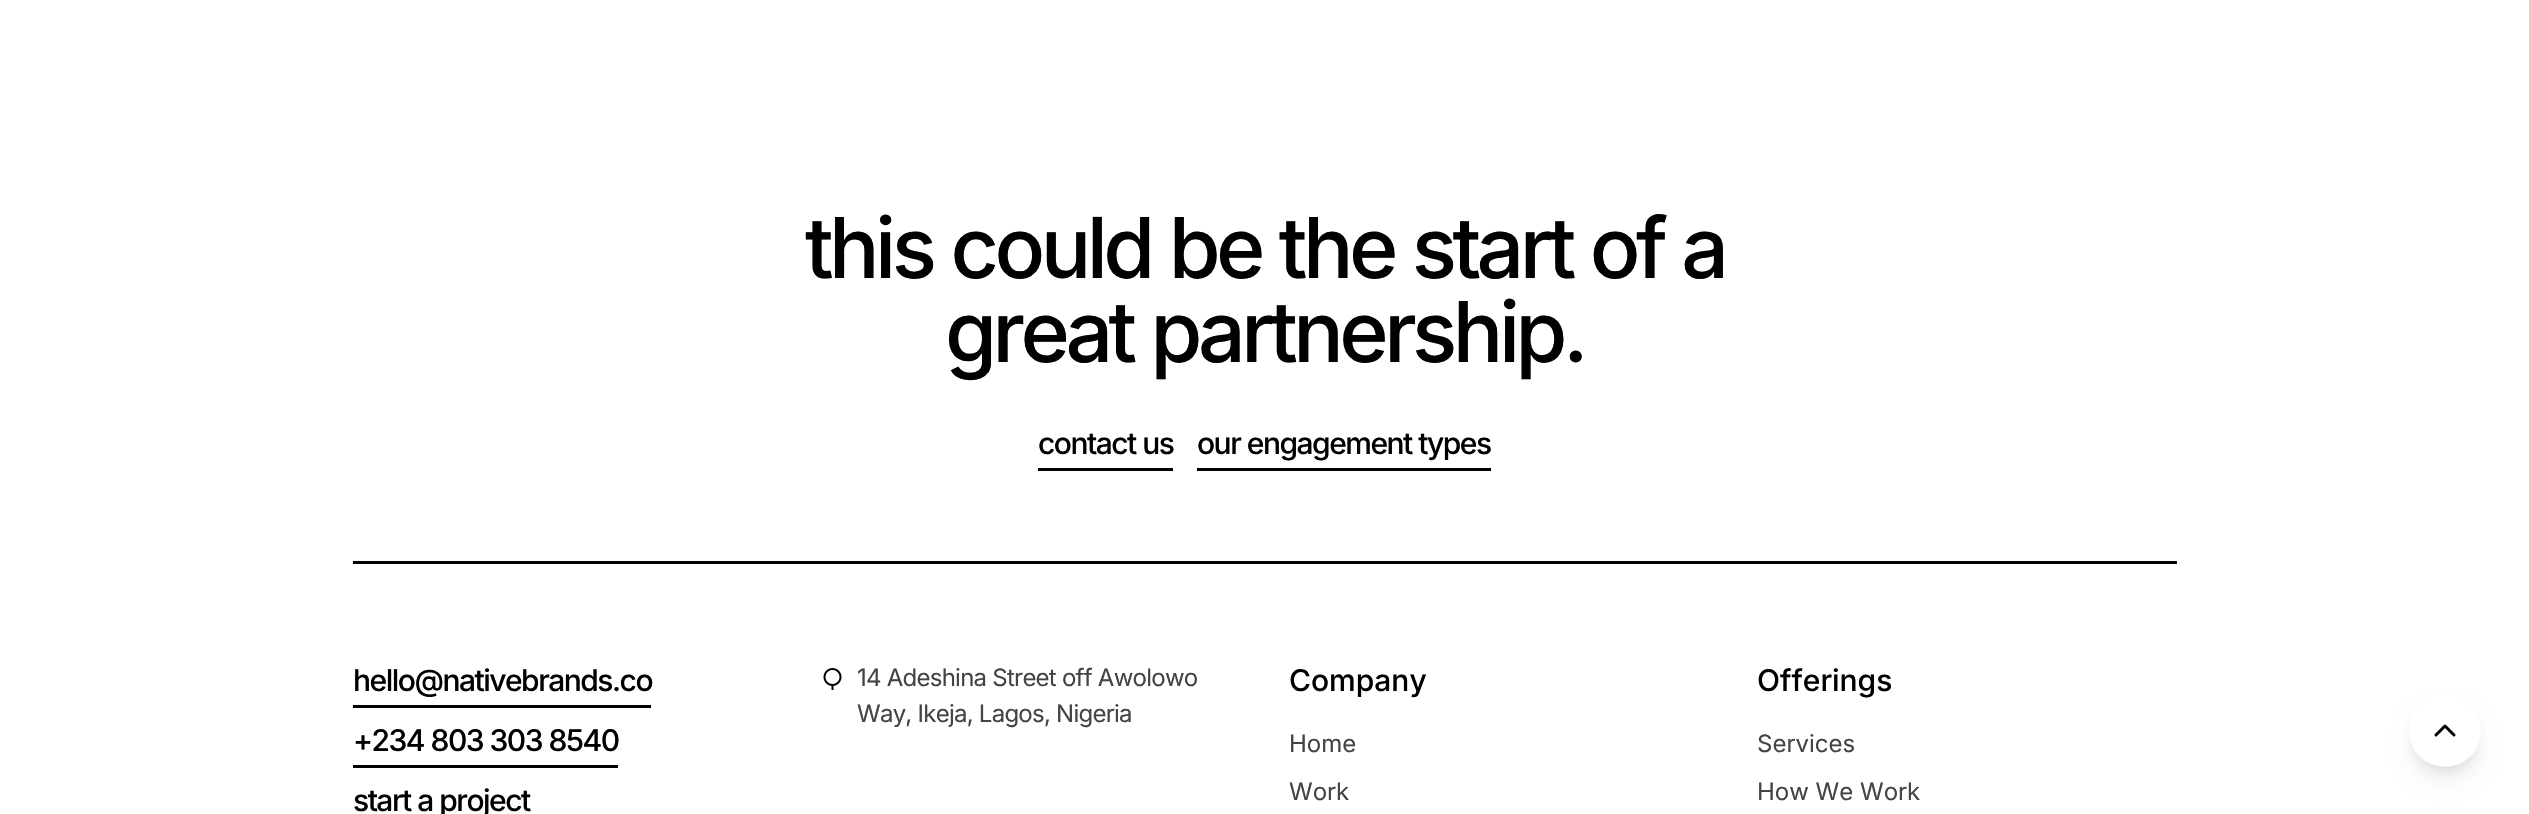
void draw(SkCanvas* canvas) {
    SkPaint paint;
    paint.setAntiAlias(true);
    auto spacedText = [&](const char* s, float x, float y, const SkFont& font, const SkPaint& ink, float letter, float word) {
        std::vector<SkGlyphID> glyphs(font.countText(s, strlen(s), SkTextEncoding::kUTF8));
        std::vector<float> xs(glyphs.size());
        font.textToGlyphs(s, strlen(s), SkTextEncoding::kUTF8, glyphs);
        font.getXPos(glyphs, xs, x);
        float extra = 0;
        for (size_t i = 0; i < glyphs.size(); i++) {
            xs[i] += extra;
            extra += letter + word * (glyphs[i] == font.unicharToGlyph(' '));
        }
        canvas->drawTextBlob(SkTextBlob::MakeFromPosHGlyphs(glyphs, xs, y, font), 0, 0, ink);
    };
    canvas->clear(0xFFFFFFFF);
    SkFont font1(fontMgr->matchFamilyStyle("Inter", SkFontStyle(500, SkFontStyle::kNormal_Width, SkFontStyle::kUpright_Slant)), 84);
    font1.setSubpixel(true);
    paint.setColor(0xFF000000);
    spacedText("this could be the start of a", 805, 278, font1, paint, -4.5f, 0);
    spacedText("great partnership.", 945, 362, font1, paint, -4.5f, 0);
    SkFont font2(fontMgr->matchFamilyStyle("Inter", SkFontStyle(500, SkFontStyle::kNormal_Width, SkFontStyle::kUpright_Slant)), 30);
    font2.setSubpixel(true);
    spacedText("contact us", 1038, 454, font2, paint, -1.5f, 0);
    canvas->drawRect(SkRect::MakeXYWH(1038, 468, 135, 3), paint);
    spacedText("our engagement types", 1197, 454, font2, paint, -1.5f, 0);
    canvas->drawRect(SkRect::MakeXYWH(1197, 468, 294, 3), paint);
    canvas->drawRect(SkRect::MakeXYWH(353, 561, 1824, 3), paint);
    spacedText("hello@nativebrands.co", 353, 691, font2, paint, -1.5f, 0);
    canvas->drawRect(SkRect::MakeXYWH(353, 705, 298, 3), paint);
    spacedText("+234 803 303 8540", 353, 751, font2, paint, -1.5f, 0);
    canvas->drawRect(SkRect::MakeXYWH(353, 765, 265, 3), paint);
    spacedText("start a project", 353, 811, font2, paint, -1.5f, 0);
    canvas->drawImageRect(SkImages::DeferredFromEncodedData(SkData::MakeFromFileName("img1.png")), SkRect::MakeXYWH(823, 668, 19, 22), SkSamplingOptions());
    SkFont font3(fontMgr->matchFamilyStyle("Inter", SkFontStyle::Normal()), 24);
    font3.setSubpixel(true);
    paint.setColor(0xFF444444);
    spacedText("14 Adeshina Street off Awolowo", 857, 686, font3, paint, -0.75f, 0);
    spacedText("Way, Ikeja, Lagos, Nigeria", 857, 722, font3, paint, -0.75f, 0);
    paint.setColor(0xFF000000);
    canvas->drawString("Company", 1289, 691, font2, paint);
    paint.setColor(0xFF444444);
    canvas->drawString("Home", 1289, 752, font3, paint);
    canvas->drawString("Work", 1289, 800, font3, paint);
    paint.setColor(0xFF000000);
    canvas->drawString("Offerings", 1757, 691, font2, paint);
    paint.setColor(0xFF444444);
    canvas->drawString("Services", 1757, 752, font3, paint);
    canvas->drawString("How We Work", 1757, 800, font3, paint);
    paint.setColor(0x1A000000);
    paint.setMaskFilter(SkMaskFilter::MakeBlur(kNormal_SkBlurStyle, 4.5f));
    canvas->drawRoundRect(SkRect::MakeXYWH(2415, 707, 60, 60), 30, 30, paint);
    paint.setMaskFilter(nullptr);
    paint.setMaskFilter(SkMaskFilter::MakeBlur(kNormal_SkBlurStyle, 11));
    canvas->drawRoundRect(SkRect::MakeXYWH(2414, 714, 63, 63), 31.5f, 31.5f, paint);
    paint.setMaskFilter(nullptr);
    paint.setColor(0xFFFFFFFF);
    canvas->drawCircle(2445, 731, 36, paint);
    paint.setStyle(SkPaint::kStroke_Style);
    paint.setStrokeWidth(3);
    paint.setStrokeCap(SkPaint::kRound_Cap);
    paint.setStrokeJoin(SkPaint::kRound_Join);
    paint.setColor(0xFF000000);
    canvas->drawPath(SkPathBuilder().moveTo(2454, 735).lineTo(2445, 726).lineTo(2436, 735).detach(), paint);
}
